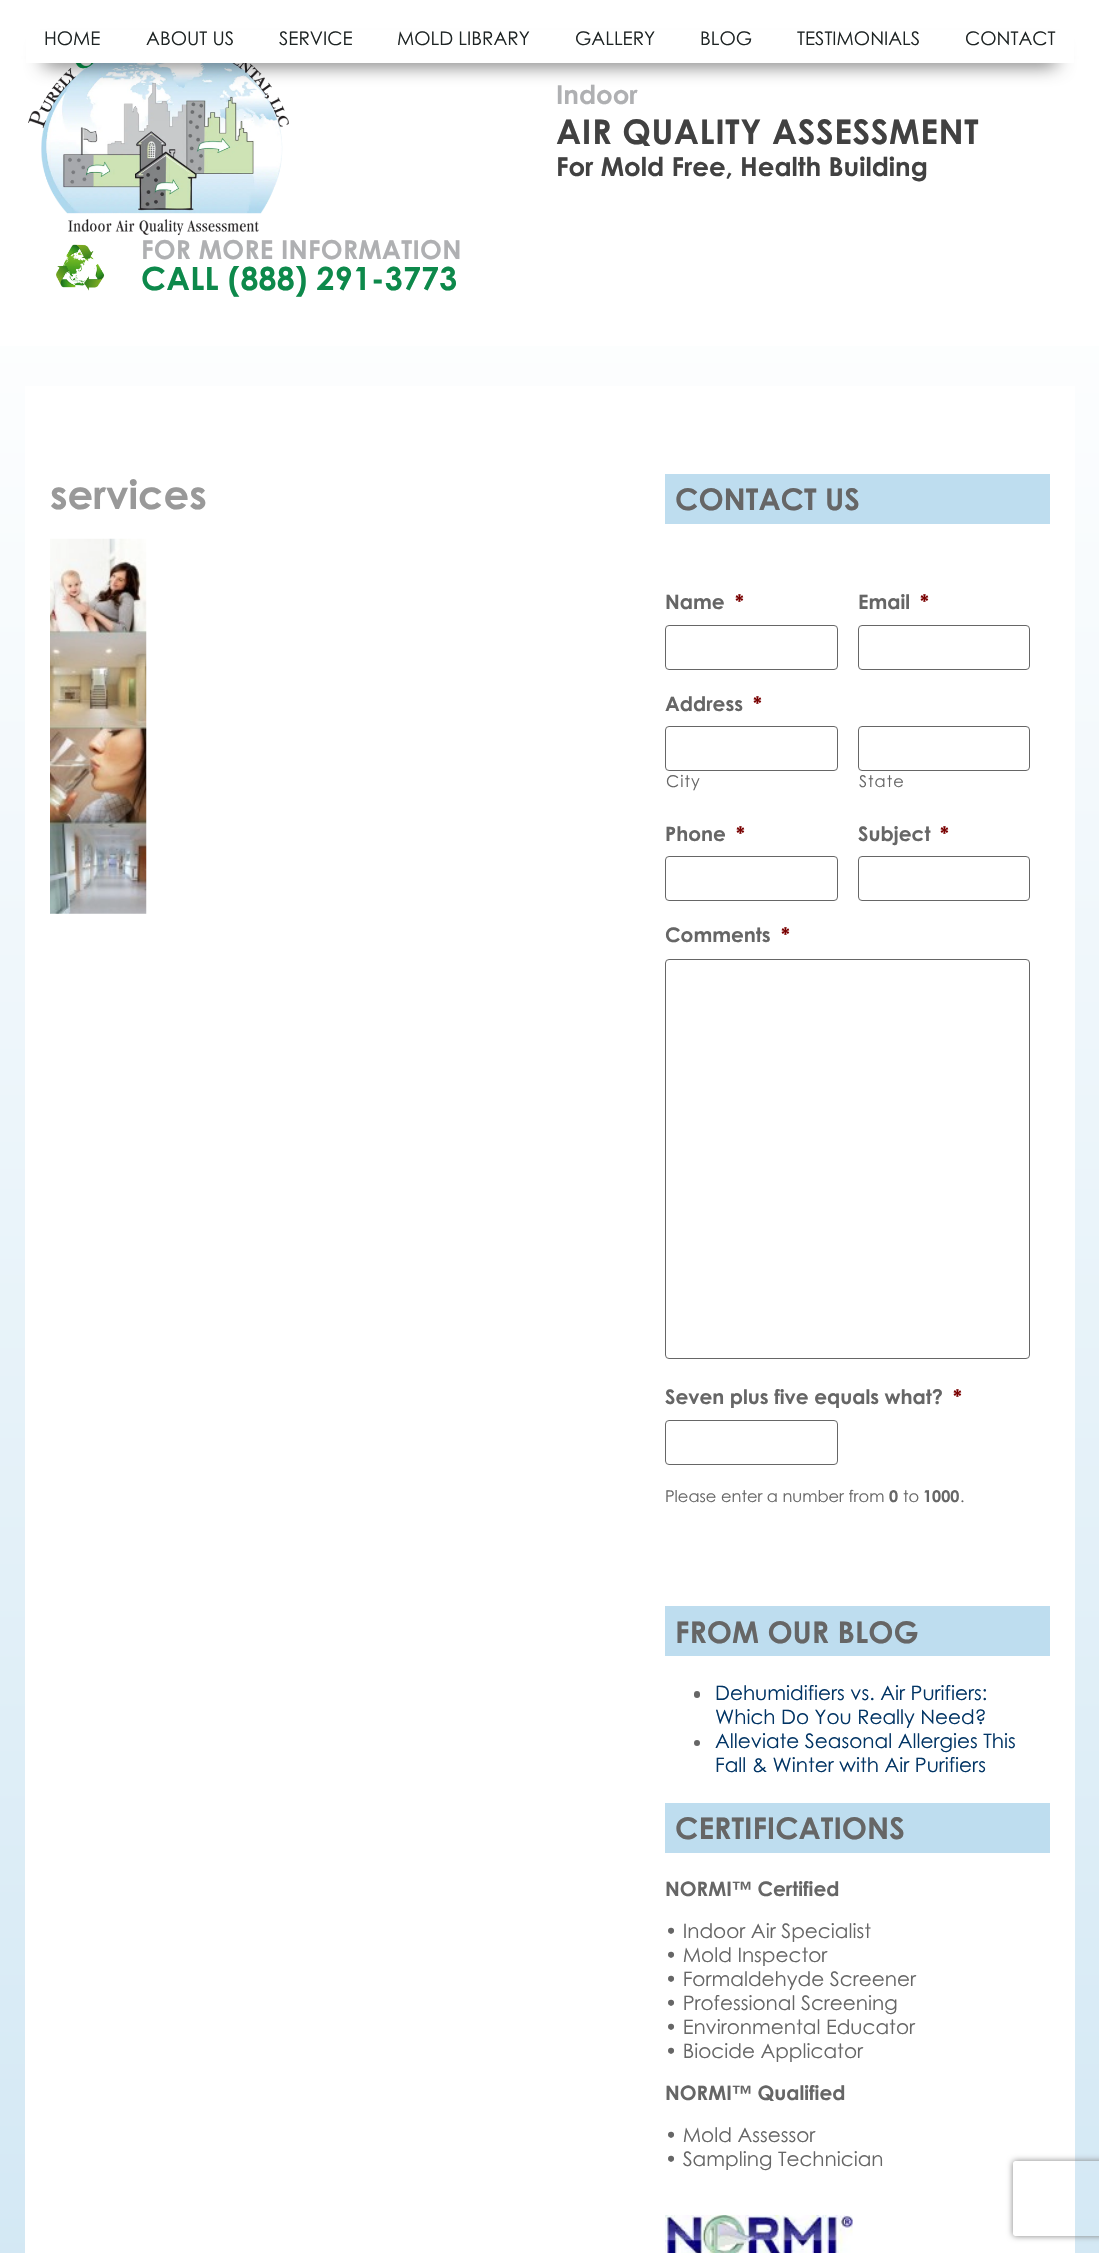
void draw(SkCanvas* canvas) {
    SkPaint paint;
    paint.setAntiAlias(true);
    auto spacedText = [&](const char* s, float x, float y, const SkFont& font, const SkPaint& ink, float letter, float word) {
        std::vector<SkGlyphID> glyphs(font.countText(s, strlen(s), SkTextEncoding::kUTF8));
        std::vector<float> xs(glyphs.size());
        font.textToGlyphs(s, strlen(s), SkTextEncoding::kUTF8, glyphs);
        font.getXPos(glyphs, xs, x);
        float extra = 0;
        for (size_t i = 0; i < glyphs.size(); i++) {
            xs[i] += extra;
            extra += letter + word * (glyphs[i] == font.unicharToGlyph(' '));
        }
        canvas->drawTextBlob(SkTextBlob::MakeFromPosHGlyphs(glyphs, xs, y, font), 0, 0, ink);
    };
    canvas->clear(0xFFFFFFFF);
    {
        const SkColor colors[] = {0xFFFFFFFF, 0xFFBEDDEF};
        const float stops[] = {0.07f, 1};
        const SkPoint ends[] = {{550, 0}, {550, 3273}};
        paint.setShader(SkGradientShader::MakeLinear(ends, colors, stops, 2, SkTileMode::kClamp));
        paint.setAlpha(255);
    }
    canvas->drawRect(SkRect::MakeXYWH(0, 346, 1099, 1907), paint);
    canvas->drawImageRect(SkImages::DeferredFromEncodedData(SkData::MakeFromFileName("img1.png")), SkRect::MakeXYWH(28, 63, 261, 173), SkSamplingOptions());
    paint.setShader(nullptr);
    paint.setColor(0xB3000000);
    paint.setMaskFilter(SkMaskFilter::MakeBlur(kNormal_SkBlurStyle, 9.5f));
    canvas->drawRect(SkRect::MakeXYWH(44, 51, 1012, 13), paint);
    paint.setMaskFilter(nullptr);
    paint.setColor(0xFFFFFFFF);
    canvas->drawRect(SkRect::MakeXYWH(26, 30, 1048, 33), paint);
    SkFont font1(fontMgr->matchFamilyStyle("Century Gothic", SkFontStyle::Normal()), 18.75f);
    font1.setSubpixel(true);
    paint.setColor(0xFF1E2424);
    canvas->drawString("HOME", 44, 45, font1, paint);
    canvas->drawString("ABOUT US", 146, 45, font1, paint);
    canvas->drawString("SERVICE", 279, 45, font1, paint);
    canvas->drawString("MOLD LIBRARY", 397, 45, font1, paint);
    canvas->drawString("GALLERY", 575, 45, font1, paint);
    canvas->drawString("BLOG", 700, 45, font1, paint);
    canvas->drawString("TESTIMONIALS", 797, 45, font1, paint);
    canvas->drawString("CONTACT", 965, 45, font1, paint);
    SkFont font2(fontMgr->matchFamilyStyle("Century Gothic", SkFontStyle::Bold()), 26);
    font2.setSubpixel(true);
    paint.setColor(0xFFAFB0B2);
    canvas->drawString("Indoor", 556, 104, font2, paint);
    SkFont font3(fontMgr->matchFamilyStyle("Century Gothic", SkFontStyle::Bold()), 34);
    font3.setSubpixel(true);
    paint.setColor(0xFF414141);
    spacedText("AIR QUALITY ASSESSMENT", 556, 144, font3, paint, 0.6f, 0);
    canvas->drawString("For Mold Free, Health Building", 556, 176, font2, paint);
    canvas->drawImageRect(SkImages::DeferredFromEncodedData(SkData::MakeFromFileName("img2.png")), SkRect::MakeXYWH(56, 244, 49, 47), SkSamplingOptions());
    paint.setColor(0xFFAFB0B2);
    spacedText("FOR MORE INFORMATION", 141, 259, font2, paint, 0.25f, 0);
    SkFont font4(fontMgr->matchFamilyStyle("Century Gothic", SkFontStyle::Bold()), 32);
    font4.setSubpixel(true);
    paint.setColor(0xFF0D894B);
    spacedText("CALL (888) 291-3773", 141, 290, font4, paint, 0.25f, 0);
    paint.setColor(0xFFFFFFFF);
    canvas->drawRect(SkRect::MakeXYWH(25, 386, 1050, 1867), paint);
    SkFont font5(fontMgr->matchFamilyStyle("Century Gothic", SkFontStyle::Bold()), 40);
    font5.setSubpixel(true);
    paint.setColor(0xFF999999);
    canvas->drawString("services", 50, 509, font5, paint);
    canvas->drawImageRect(SkImages::DeferredFromEncodedData(SkData::MakeFromFileName("img3.png")), SkRect::MakeXYWH(50, 538, 97, 376), SkSamplingOptions());
    paint.setColor(0xFFBEDDEF);
    canvas->drawRect(SkRect::MakeXYWH(665, 474, 385, 50), paint);
    SkFont font6(fontMgr->matchFamilyStyle("Century Gothic", SkFontStyle::Bold()), 30);
    font6.setSubpixel(true);
    paint.setColor(0xFF666666);
    canvas->drawString("CONTACT US", 675, 510, font6, paint);
    SkFont font7(fontMgr->matchFamilyStyle("Century Gothic", SkFontStyle::Bold()), 20);
    font7.setSubpixel(true);
    canvas->drawString("Name", 665, 609, font7, paint);
    paint.setColor(0xFF790000);
    canvas->drawString("*", 735, 609, font7, paint);
    paint.setStyle(SkPaint::kStroke_Style);
    paint.setStrokeWidth(1);
    paint.setColor(0xFF666666);
    canvas->drawRoundRect(SkRect::MakeXYWH(665.5f, 625.5f, 172, 44), 3.5f, 3.5f, paint);
    paint.setStyle(SkPaint::kFill_Style);
    canvas->drawString("Email", 858, 609, font7, paint);
    paint.setColor(0xFF790000);
    canvas->drawString("*", 920, 609, font7, paint);
    paint.setStyle(SkPaint::kStroke_Style);
    paint.setColor(0xFF666666);
    canvas->drawRoundRect(SkRect::MakeXYWH(858.5f, 625.5f, 171, 44), 3.5f, 3.5f, paint);
    paint.setStyle(SkPaint::kFill_Style);
    canvas->drawString("Address", 665, 711, font7, paint);
    paint.setColor(0xFF790000);
    canvas->drawString("*", 753, 711, font7, paint);
    paint.setStyle(SkPaint::kStroke_Style);
    paint.setColor(0xFF666666);
    canvas->drawRoundRect(SkRect::MakeXYWH(665.5f, 726.5f, 172, 44), 3.5f, 3.5f, paint);
    SkFont font8(fontMgr->matchFamilyStyle("Century Gothic", SkFontStyle::Normal()), 16.25f);
    font8.setSubpixel(true);
    paint.setStyle(SkPaint::kFill_Style);
    spacedText("City", 666, 787, font8, paint, 1, 0);
    paint.setStyle(SkPaint::kStroke_Style);
    canvas->drawRoundRect(SkRect::MakeXYWH(858.5f, 726.5f, 171, 44), 3.5f, 3.5f, paint);
    paint.setStyle(SkPaint::kFill_Style);
    spacedText("State", 859, 787, font8, paint, 1, 0);
    canvas->drawString("Phone", 665, 841, font7, paint);
    paint.setColor(0xFF790000);
    canvas->drawString("*", 736, 841, font7, paint);
    paint.setStyle(SkPaint::kStroke_Style);
    paint.setColor(0xFF666666);
    canvas->drawRoundRect(SkRect::MakeXYWH(665.5f, 856.5f, 172, 44), 3.5f, 3.5f, paint);
    paint.setStyle(SkPaint::kFill_Style);
    canvas->drawString("Subject", 858, 841, font7, paint);
    paint.setColor(0xFF790000);
    canvas->drawString("*", 940, 841, font7, paint);
    paint.setStyle(SkPaint::kStroke_Style);
    paint.setColor(0xFF666666);
    canvas->drawRoundRect(SkRect::MakeXYWH(858.5f, 856.5f, 171, 44), 3.5f, 3.5f, paint);
    paint.setStyle(SkPaint::kFill_Style);
    canvas->drawString("Comments", 665, 942, font7, paint);
    paint.setColor(0xFF790000);
    canvas->drawString("*", 781, 942, font7, paint);
    paint.setStyle(SkPaint::kStroke_Style);
    paint.setColor(0xFF666666);
    canvas->drawRoundRect(SkRect::MakeXYWH(665.5f, 959.5f, 364, 399), 3.5f, 3.5f, paint);
    paint.setStyle(SkPaint::kFill_Style);
    canvas->drawString("Seven plus five equals what?", 665, 1404, font7, paint);
    paint.setColor(0xFF790000);
    canvas->drawString("*", 953, 1404, font7, paint);
    paint.setStyle(SkPaint::kStroke_Style);
    paint.setColor(0xFF666666);
    canvas->drawRoundRect(SkRect::MakeXYWH(665.5f, 1420.5f, 172, 44), 3.5f, 3.5f, paint);
    paint.setStyle(SkPaint::kFill_Style);
    canvas->drawString("Please enter a number from", 665, 1502, font8, paint);
    SkFont font9(fontMgr->matchFamilyStyle("Century Gothic", SkFontStyle::Bold()), 16.25f);
    font9.setSubpixel(true);
    canvas->drawString("0", 889, 1502, font9, paint);
    canvas->drawString("to", 903, 1502, font8, paint);
    canvas->drawString("1000", 923, 1502, font9, paint);
    canvas->drawString(".", 960, 1502, font8, paint);
    canvas->save();
    canvas->clipPath(SkPathBuilder(SkPathFillType::kEvenOdd).moveTo(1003, 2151).lineTo(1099, 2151).lineTo(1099, 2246).lineTo(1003, 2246).close().moveTo(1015.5f, 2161).lineTo(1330.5f, 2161).cubicTo(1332, 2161, 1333, 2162, 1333, 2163.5f).lineTo(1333, 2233.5f).cubicTo(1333, 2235, 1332, 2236, 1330.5f, 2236).lineTo(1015.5f, 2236).cubicTo(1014, 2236, 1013, 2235, 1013, 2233.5f).lineTo(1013, 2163.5f).cubicTo(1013, 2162, 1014, 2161, 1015.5f, 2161).close().detach(), true);
    paint.setColor(0xFF808080);
    paint.setMaskFilter(SkMaskFilter::MakeBlur(kNormal_SkBlurStyle, 3));
    canvas->drawRoundRect(SkRect::MakeXYWH(1013, 2161, 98, 75), 2.5f, 2.5f, paint);
    paint.setMaskFilter(nullptr);
    canvas->restore();
    paint.setColor(0xFFBEDDEF);
    canvas->drawRect(SkRect::MakeXYWH(665, 1606, 385, 50), paint);
    paint.setColor(0xFF666666);
    canvas->drawString("FROM OUR BLOG", 675, 1643, font6, paint);
    canvas->drawRoundRect(SkRect::MakeXYWH(694, 1691, 6, 7), 3, 3, paint);
    SkFont font10(fontMgr->matchFamilyStyle("Century Gothic", SkFontStyle::Normal()), 20);
    font10.setSubpixel(true);
    paint.setColor(0xFF023565);
    canvas->drawString("Dehumidifiers vs. Air Purifiers:", 715, 1700, font10, paint);
    canvas->drawString("Which Do You Really Need?", 715, 1724, font10, paint);
    paint.setColor(0xFF666666);
    canvas->drawCircle(697, 1743, 3, paint);
    paint.setColor(0xFF023565);
    canvas->drawString("Alleviate Seasonal Allergies This", 715, 1748, font10, paint);
    canvas->drawString("Fall & Winter with Air Purifiers", 715, 1772, font10, paint);
    paint.setColor(0xFFBEDDEF);
    canvas->drawRect(SkRect::MakeXYWH(665, 1803, 385, 50), paint);
    paint.setColor(0xFF666666);
    canvas->drawString("CERTIFICATIONS", 675, 1839, font6, paint);
    canvas->drawString("NORMI™ Certified", 665, 1896, font7, paint);
    canvas->drawString("• Indoor Air Specialist", 665, 1938, font10, paint);
    canvas->drawString("• Mold Inspector", 665, 1962, font10, paint);
    canvas->drawString("• Formaldehyde Screener", 665, 1986, font10, paint);
    canvas->drawString("• Professional Screening", 665, 2010, font10, paint);
    canvas->drawString("• Environmental Educator", 665, 2034, font10, paint);
    canvas->drawString("• Biocide Applicator", 665, 2058, font10, paint);
    canvas->drawString("NORMI™ Qualified", 665, 2100, font7, paint);
    canvas->drawString("• Mold Assessor", 665, 2142, font10, paint);
    canvas->drawString("• Sampling Technician", 665, 2166, font10, paint);
    canvas->drawImageRect(SkImages::DeferredFromEncodedData(SkData::MakeFromFileName("img4.png")), SkRect::MakeXYWH(665, 2215, 188, 38), SkSamplingOptions());
}
